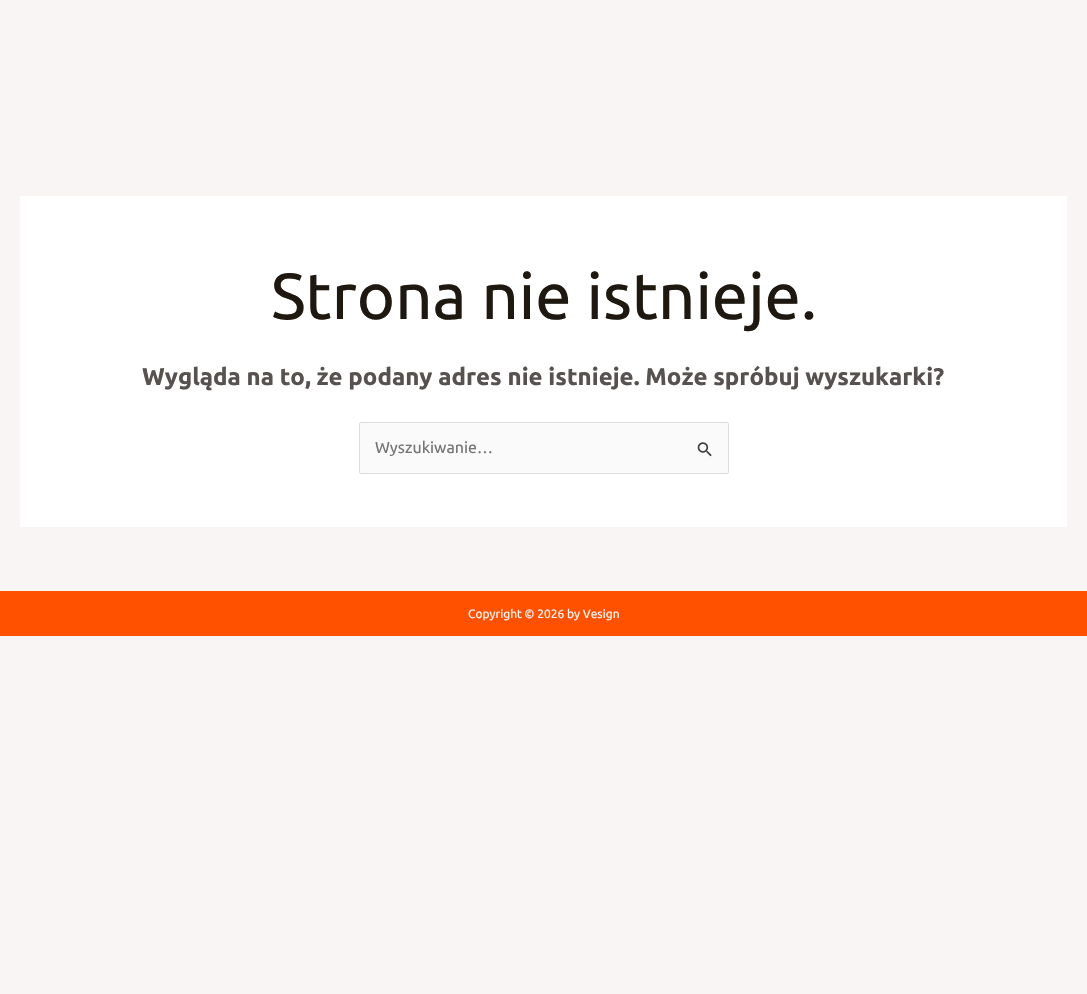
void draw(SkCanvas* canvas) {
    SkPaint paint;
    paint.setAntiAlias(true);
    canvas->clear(0xFFF8F5F4);
    paint.setColor(0xFFFFFFFF);
    canvas->drawRect(SkRect::MakeXYWH(20, 196, 1047, 331), paint);
    SkFont font1(fontMgr->matchFamilyStyle("Ubuntu", SkFontStyle::Normal()), 65);
    font1.setSubpixel(true);
    paint.setColor(0xFF1E1810);
    canvas->drawString("Strona nie istnieje.", 271, 319, font1, paint);
    SkFont font2(fontMgr->matchFamilyStyle("Ubuntu", SkFontStyle::Bold()), 24);
    font2.setSubpixel(true);
    paint.setColor(0xFF575250);
    canvas->drawString("Wygląda na to, że podany adres nie istnieje. Może spróbuj wyszukarki?", 142, 385, font2, paint);
    paint.setColor(0xFFFAFAFA);
    canvas->drawRoundRect(SkRect::MakeXYWH(359.5f, 422.5f, 369, 51), 1.5f, 1.5f, paint);
    paint.setStyle(SkPaint::kStroke_Style);
    paint.setStrokeWidth(1);
    paint.setColor(0xFFDDDDDD);
    canvas->drawRoundRect(SkRect::MakeXYWH(359.5f, 422.5f, 369, 51), 1.5f, 1.5f, paint);
    SkFont font3(fontMgr->matchFamilyStyle("Ubuntu", SkFontStyle::Normal()), 16);
    font3.setSubpixel(true);
    paint.setStyle(SkPaint::kFill_Style);
    paint.setColor(0xFF757575);
    canvas->drawString("Wyszukiwanie…", 375, 453, font3, paint);
    canvas->drawImageRect(SkImages::DeferredFromEncodedData(SkData::MakeFromFileName("img1.png")), SkRect::MakeXYWH(697, 442, 15, 15), SkSamplingOptions());
    paint.setColor(0xFFFF5100);
    canvas->drawRect(SkRect::MakeXYWH(0, 591, 1087, 45), paint);
    SkFont font4(fontMgr->matchFamilyStyle("Ubuntu", SkFontStyle::Normal()), 12);
    font4.setSubpixel(true);
    paint.setColor(0xFFF8F5F4);
    canvas->drawString("Copyright © 2026 by Vesign", 468, 618, font4, paint);
}
